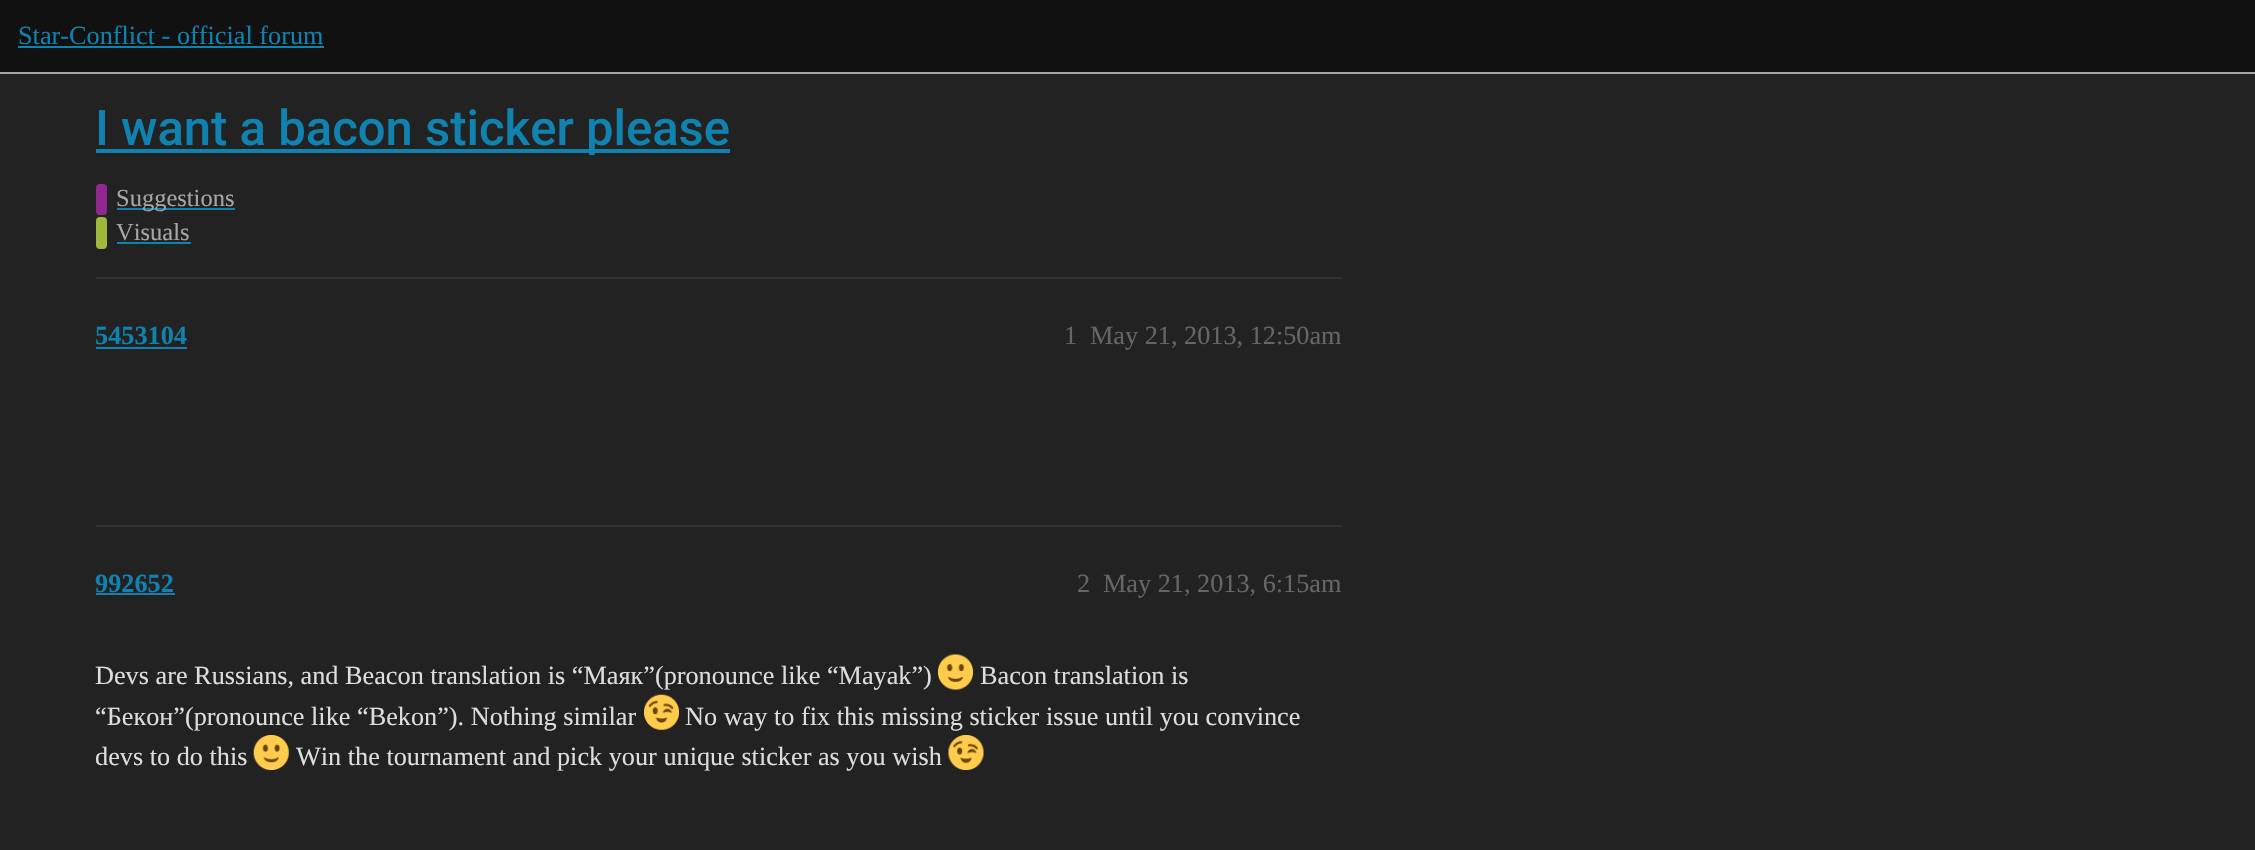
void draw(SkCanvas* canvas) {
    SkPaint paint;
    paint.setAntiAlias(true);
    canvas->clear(0xFF222222);
    paint.setColor(0xFF111111);
    canvas->drawRect(SkRect::MakeXYWH(0, 0, 2255, 72), paint);
    paint.setColor(0xFFA4A4A4);
    canvas->drawRect(SkRect::MakeXYWH(0, 72, 2255, 2), paint);
    SkFont font1(fontMgr->matchFamilyStyle("Liberation Serif", SkFontStyle::Normal()), 26.25f);
    font1.setSubpixel(true);
    paint.setColor(0xFF0F82AF);
    canvas->drawString("Star-Conflict - official forum", 18, 44, font1, paint);
    canvas->drawRect(SkRect::MakeXYWH(18, 46, 306, 2), paint);
    canvas->drawRect(SkRect::MakeXYWH(96, 149, 634, 4), paint);
    SkFont font2(fontMgr->matchFamilyStyle("Roboto", SkFontStyle(500, SkFontStyle::kNormal_Width, SkFontStyle::kUpright_Slant)), 49);
    font2.setSubpixel(true);
    canvas->drawString("I want a bacon sticker please", 95, 145, font2, paint);
    paint.setColor(0xFF92278F);
    canvas->drawRoundRect(SkRect::MakeXYWH(96, 184, 11, 31), 4, 4, paint);
    paint.setColor(0xFF0F82AF);
    canvas->drawRect(SkRect::MakeXYWH(117, 208, 118, 2), paint);
    SkFont font3(fontMgr->matchFamilyStyle("Liberation Serif", SkFontStyle::Normal()), 24.5f);
    font3.setSubpixel(true);
    paint.setColor(0xFFA6A6A6);
    canvas->drawString("Suggestions", 116, 206, font3, paint);
    paint.setColor(0xFF9EB83B);
    canvas->drawRoundRect(SkRect::MakeXYWH(96, 217, 11, 32), 4, 4, paint);
    paint.setColor(0xFFA6A6A6);
    canvas->drawString("Visuals", 116, 240, font3, paint);
    paint.setColor(0xFF0F82AF);
    canvas->drawRect(SkRect::MakeXYWH(117, 242, 74, 2), paint);
    paint.setColor(0xFF313131);
    canvas->drawRect(SkRect::MakeXYWH(96, 277, 1246, 2), paint);
    SkFont font4(fontMgr->matchFamilyStyle("Liberation Serif", SkFontStyle::Bold()), 26.25f);
    font4.setSubpixel(true);
    paint.setColor(0xFF0F82AF);
    canvas->drawString("5453104", 95, 344, font4, paint);
    canvas->drawRect(SkRect::MakeXYWH(96, 347, 91, 2), paint);
    paint.setColor(0xFF666666);
    canvas->drawString("1", 1064, 344, font1, paint);
    canvas->drawString("May 21, 2013, 12:50am", 1090, 344, font1, paint);
    paint.setColor(0xFF313131);
    canvas->drawRect(SkRect::MakeXYWH(96, 525, 1246, 2), paint);
    paint.setColor(0xFF0F82AF);
    canvas->drawString("992652", 95, 592, font4, paint);
    canvas->drawRect(SkRect::MakeXYWH(96, 593, 79, 2), paint);
    paint.setColor(0xFF666666);
    canvas->drawString("2", 1077, 592, font1, paint);
    canvas->drawString("May 21, 2013, 6:15am", 1103, 592, font1, paint);
    paint.setColor(0xFFDDDDDD);
    canvas->drawString("Devs are Russians, and Beacon translation is “Маяк”(pronounce like “Mayak”)", 95, 684, font1, paint);
    canvas->drawImageRect(SkImages::DeferredFromEncodedData(SkData::MakeFromFileName("img1.png")), SkRect::MakeXYWH(938, 654, 35, 36), SkSamplingOptions());
    canvas->drawString("Bacon translation is", 980, 684, font1, paint);
    canvas->drawString("“Бекон”(pronounce like “Bekon”). Nothing similar", 95, 725, font1, paint);
    canvas->drawImageRect(SkImages::DeferredFromEncodedData(SkData::MakeFromFileName("img2.png")), SkRect::MakeXYWH(644, 694, 35, 36), SkSamplingOptions());
    canvas->drawString("No way to fix this missing sticker issue until you convince", 685, 725, font1, paint);
    canvas->drawString("devs to do this", 95, 765, font1, paint);
    canvas->drawImageRect(SkImages::DeferredFromEncodedData(SkData::MakeFromFileName("img3.png")), SkRect::MakeXYWH(253, 735, 36, 35), SkSamplingOptions());
    canvas->drawString("Win the tournament and pick your unique sticker as you wish", 296, 765, font1, paint);
    canvas->drawImageRect(SkImages::DeferredFromEncodedData(SkData::MakeFromFileName("img4.png")), SkRect::MakeXYWH(948, 735, 36, 35), SkSamplingOptions());
}
